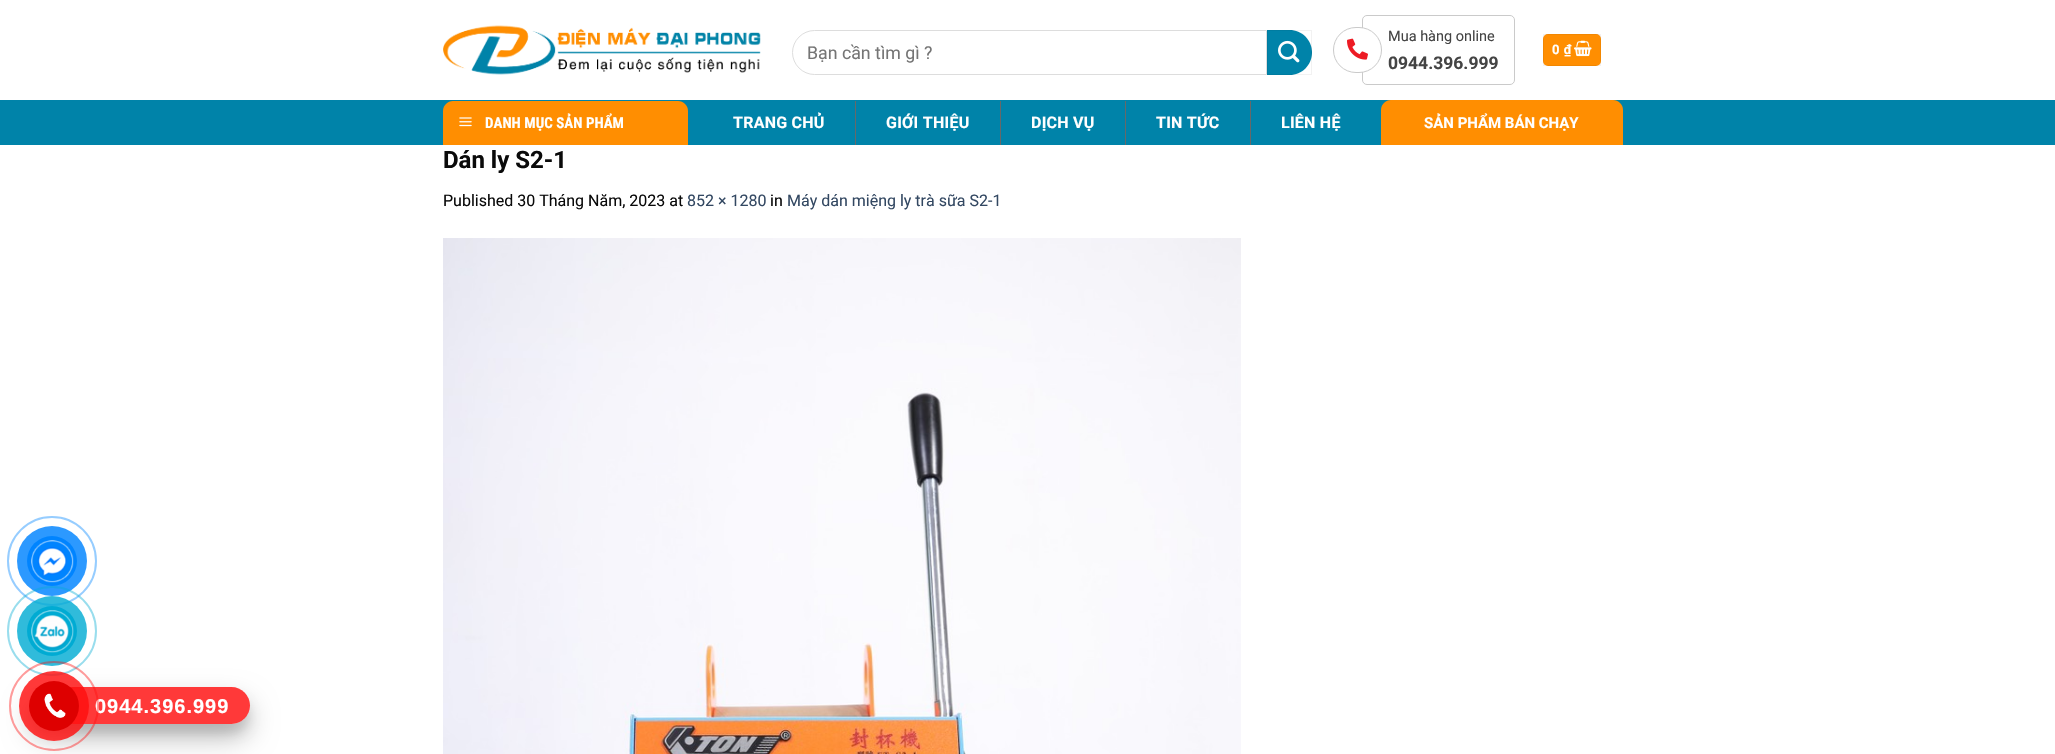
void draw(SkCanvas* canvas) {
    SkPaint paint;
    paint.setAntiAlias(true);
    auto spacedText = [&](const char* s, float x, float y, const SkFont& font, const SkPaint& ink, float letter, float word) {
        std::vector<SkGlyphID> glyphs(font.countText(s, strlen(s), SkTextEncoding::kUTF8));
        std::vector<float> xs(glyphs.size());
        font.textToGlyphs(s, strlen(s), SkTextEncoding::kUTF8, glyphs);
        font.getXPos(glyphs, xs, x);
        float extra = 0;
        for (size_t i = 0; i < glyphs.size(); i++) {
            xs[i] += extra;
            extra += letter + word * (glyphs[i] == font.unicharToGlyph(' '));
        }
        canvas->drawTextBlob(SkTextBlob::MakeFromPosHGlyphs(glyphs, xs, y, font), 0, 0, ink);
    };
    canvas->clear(0xFFFFFFFF);
    canvas->drawImageRect(SkImages::DeferredFromEncodedData(SkData::MakeFromFileName("img1.png")), SkRect::MakeXYWH(443, 25, 318, 50), SkSamplingOptions());
    paint.setStyle(SkPaint::kStroke_Style);
    paint.setStrokeWidth(1);
    paint.setColor(0xFFDDDDDD);
    canvas->drawPath(SkPathBuilder().moveTo(814.5f, 30.5f).lineTo(1266.5f, 30.5f).lineTo(1266.5f, 74.5f).lineTo(814.5f, 74.5f).cubicTo(802.5f, 74.5f, 792.5f, 64.5f, 792.5f, 52.5f).cubicTo(792.5f, 40.5f, 802.5f, 30.5f, 814.5f, 30.5f).close().detach(), paint);
    SkFont font1(fontMgr->matchFamilyStyle("Roboto", SkFontStyle::Normal()), 17.75f);
    font1.setSubpixel(true);
    paint.setStyle(SkPaint::kFill_Style);
    paint.setColor(0xFF757575);
    canvas->drawString("Bạn cần tìm gì ?", 807, 59, font1, paint);
    paint.setColor(0xFF0083A9);
    canvas->drawPath(SkPathBuilder().moveTo(1267, 30).lineTo(1289.5f, 30).cubicTo(1302, 30, 1312, 40, 1312, 52.5f).cubicTo(1312, 65, 1302, 75, 1289.5f, 75).lineTo(1267, 75).close().detach(), paint);
    paint.setStyle(SkPaint::kStroke_Style);
    paint.setColor(0x0D000000);
    canvas->drawRect(SkRect::MakeXYWH(1267.5f, 30.5f, 44, 44), paint);
    canvas->drawImageRect(SkImages::DeferredFromEncodedData(SkData::MakeFromFileName("img2.png")), SkRect::MakeXYWH(1278, 40, 22, 23), SkSamplingOptions());
    paint.setColor(0xFFCACACA);
    canvas->drawRoundRect(SkRect::MakeXYWH(1362.5f, 15.5f, 152, 69), 4.5f, 4.5f, paint);
    paint.setStyle(SkPaint::kFill_Style);
    paint.setColor(0xFFFFFFFF);
    canvas->drawRoundRect(SkRect::MakeXYWH(1333.5f, 27.5f, 48, 45), 22.5f, 22.5f, paint);
    paint.setStyle(SkPaint::kStroke_Style);
    paint.setColor(0xFFCACACA);
    canvas->drawRoundRect(SkRect::MakeXYWH(1333.5f, 27.5f, 48, 45), 22.5f, 22.5f, paint);
    canvas->drawImageRect(SkImages::DeferredFromEncodedData(SkData::MakeFromFileName("img3.png")), SkRect::MakeXYWH(1347, 38, 21, 22), SkSamplingOptions());
    SkFont font2(fontMgr->matchFamilyStyle("Roboto", SkFontStyle::Normal()), 14.5f);
    font2.setSubpixel(true);
    paint.setStyle(SkPaint::kFill_Style);
    paint.setColor(0xFF444444);
    canvas->drawString("Mua hàng online", 1388, 41, font2, paint);
    SkFont font3(fontMgr->matchFamilyStyle("Roboto", SkFontStyle::Bold()), 17.5f);
    font3.setSubpixel(true);
    canvas->drawString("0944.396.999", 1388, 69, font3, paint);
    paint.setColor(0xFFFF8E01);
    canvas->drawRoundRect(SkRect::MakeXYWH(1543, 34, 58, 32), 5, 5, paint);
    paint.setStyle(SkPaint::kStroke_Style);
    paint.setColor(0x0D000000);
    canvas->drawRect(SkRect::MakeXYWH(1543.5f, 34.5f, 57, 31), paint);
    SkFont font4(fontMgr->matchFamilyStyle("Roboto", SkFontStyle::Bold()), 13);
    font4.setSubpixel(true);
    paint.setStyle(SkPaint::kFill_Style);
    paint.setColor(0xFFFFFFFF);
    spacedText("0 ₫", 1552, 54, font4, paint, 0.5f, 0);
    canvas->drawImageRect(SkImages::DeferredFromEncodedData(SkData::MakeFromFileName("img4.png")), SkRect::MakeXYWH(1574, 40, 18, 17), SkSamplingOptions());
    paint.setColor(0xFF0083A9);
    canvas->drawRect(SkRect::MakeXYWH(0, 100, 2055, 45), paint);
    paint.setColor(0xFFFF8E01);
    canvas->drawPath(SkPathBuilder().moveTo(453, 101).lineTo(678, 101).cubicTo(683.5f, 101, 688, 105.5f, 688, 111).lineTo(688, 145).lineTo(443, 145).lineTo(443, 111).cubicTo(443, 105.5f, 447.5f, 101, 453, 101).close().detach(), paint);
    canvas->drawImageRect(SkImages::DeferredFromEncodedData(SkData::MakeFromFileName("img5.png")), SkRect::MakeXYWH(459, 117, 13, 10), SkSamplingOptions());
    SkFont font5(fontMgr->matchFamilyStyle("Roboto Condensed", SkFontStyle::Bold()), 15);
    font5.setSubpixel(true);
    paint.setColor(0xFFFFFFFF);
    canvas->drawString("DANH MỤC SẢN PHẨM", 485, 128, font5, paint);
    SkFont font6(fontMgr->matchFamilyStyle("Roboto", SkFontStyle::Bold()), 16);
    font6.setSubpixel(true);
    spacedText("TRANG CHỦ", 733, 128, font6, paint, 0.25f, 0);
    paint.setColor(0xFF686868);
    canvas->drawRect(SkRect::MakeXYWH(855, 101, 1, 44), paint);
    paint.setColor(0xFFFFFFFF);
    spacedText("GIỚI THIỆU", 886, 128, font6, paint, 0.25f, 0);
    paint.setColor(0xFF686868);
    canvas->drawRect(SkRect::MakeXYWH(1000, 101, 1, 44), paint);
    paint.setColor(0xFFFFFFFF);
    spacedText("DỊCH VỤ", 1031, 128, font6, paint, 0.25f, 0);
    paint.setColor(0xFF686868);
    canvas->drawRect(SkRect::MakeXYWH(1125, 101, 1, 44), paint);
    paint.setColor(0xFFFFFFFF);
    spacedText("TIN TỨC", 1156, 128, font6, paint, 0.25f, 0);
    paint.setColor(0xFF686868);
    canvas->drawRect(SkRect::MakeXYWH(1250, 101, 1, 44), paint);
    paint.setColor(0xFFFFFFFF);
    spacedText("LIÊN HỆ", 1281, 128, font6, paint, 0.25f, 0);
    paint.setColor(0xFFFF8E01);
    canvas->drawPath(SkPathBuilder().moveTo(1391, 100).lineTo(1613, 100).cubicTo(1618.5f, 100, 1623, 104.5f, 1623, 110).lineTo(1623, 145).lineTo(1381, 145).lineTo(1381, 110).cubicTo(1381, 104.5f, 1385.5f, 100, 1391, 100).close().detach(), paint);
    SkFont font7(fontMgr->matchFamilyStyle("Roboto", SkFontStyle::Bold()), 15);
    font7.setSubpixel(true);
    paint.setColor(0xFFFFFFFF);
    canvas->drawString("SẢN PHẨM BÁN CHẠY", 1424, 128, font7, paint);
    SkFont font8(fontMgr->matchFamilyStyle("Roboto", SkFontStyle::Bold()), 24);
    font8.setSubpixel(true);
    paint.setColor(0xFF0A0A0A);
    canvas->drawString("Dán ly S2-1", 443, 168, font8, paint);
    SkFont font9(fontMgr->matchFamilyStyle("Roboto", SkFontStyle::Normal()), 16);
    font9.setSubpixel(true);
    canvas->drawString("Published 30 Tháng Năm, 2023 at", 443, 206, font9, paint);
    paint.setColor(0xFF334862);
    canvas->drawString("852 × 1280", 687, 206, font9, paint);
    paint.setColor(0xFF0A0A0A);
    canvas->drawString("in", 770, 206, font9, paint);
    paint.setColor(0xFF334862);
    canvas->drawString("Máy dán miệng ly trà sữa S2-1", 787, 206, font9, paint);
    canvas->drawImageRect(SkImages::DeferredFromEncodedData(SkData::MakeFromFileName("img6.png")), SkRect::MakeXYWH(443, 238, 798, 516), SkSamplingOptions());
    paint.setStyle(SkPaint::kStroke_Style);
    paint.setStrokeWidth(2);
    paint.setColor(0xFF96CDFF);
    canvas->drawCircle(52, 561, 44, paint);
    paint.setStyle(SkPaint::kFill_Style);
    paint.setColor(0xFF2C99FF);
    canvas->drawCircle(52, 561, 35, paint);
    paint.setColor(0xFF0084FF);
    canvas->drawCircle(52, 561, 25, paint);
    canvas->drawImageRect(SkImages::DeferredFromEncodedData(SkData::MakeFromFileName("img7.png")), SkRect::MakeXYWH(31, 540, 43, 43), SkSamplingOptions());
    canvas->save();
    canvas->clipPath(SkPathBuilder(SkPathFillType::kEvenOdd).moveTo(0, 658).lineTo(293, 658).lineTo(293, 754).lineTo(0, 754).close().moveTo(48.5f, 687).lineTo(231.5f, 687).cubicTo(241.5f, 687, 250, 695.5f, 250, 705.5f).cubicTo(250, 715.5f, 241.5f, 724, 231.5f, 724).lineTo(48.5f, 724).cubicTo(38.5f, 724, 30, 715.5f, 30, 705.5f).cubicTo(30, 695.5f, 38.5f, 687, 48.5f, 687).close().detach(), true);
    paint.setColor(0x40000000);
    paint.setMaskFilter(SkMaskFilter::MakeBlur(kNormal_SkBlurStyle, 14));
    canvas->drawRoundRect(SkRect::MakeXYWH(30, 701, 220, 37), 18.5f, 18.5f, paint);
    paint.setMaskFilter(nullptr);
    canvas->restore();
    paint.setStyle(SkPaint::kStroke_Style);
    paint.setColor(0x6600ABD3);
    canvas->drawCircle(52, 631, 44, paint);
    paint.setStyle(SkPaint::kFill_Style);
    paint.setColor(0xCF00ABD3);
    canvas->drawCircle(52, 631, 35, paint);
    paint.setColor(0xFF00ABD3);
    canvas->drawCircle(52, 631, 25, paint);
    canvas->drawImageRect(SkImages::DeferredFromEncodedData(SkData::MakeFromFileName("img8.png")), SkRect::MakeXYWH(31, 610, 43, 43), SkSamplingOptions());
    canvas->save();
    canvas->clipPath(SkPathBuilder(SkPathFillType::kEvenOdd).moveTo(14, 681).lineTo(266, 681).lineTo(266, 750).lineTo(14, 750).close().moveTo(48.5f, 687).lineTo(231.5f, 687).cubicTo(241.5f, 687, 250, 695.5f, 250, 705.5f).cubicTo(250, 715.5f, 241.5f, 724, 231.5f, 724).lineTo(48.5f, 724).cubicTo(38.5f, 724, 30, 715.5f, 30, 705.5f).cubicTo(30, 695.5f, 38.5f, 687, 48.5f, 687).close().detach(), true);
    paint.setColor(0x1A000000);
    paint.setMaskFilter(SkMaskFilter::MakeBlur(kNormal_SkBlurStyle, 5));
    canvas->drawRoundRect(SkRect::MakeXYWH(30, 697, 220, 37), 18.5f, 18.5f, paint);
    paint.setMaskFilter(nullptr);
    canvas->restore();
    paint.setColor(0xD1FF0E0E);
    canvas->drawRoundRect(SkRect::MakeXYWH(30, 687, 220, 37), 18.5f, 18.5f, paint);
    SkFont font10(fontMgr->matchFamilyStyle("Liberation Sans", SkFontStyle::Bold()), 20);
    font10.setSubpixel(true);
    paint.setColor(0xFFFFFFFF);
    spacedText("0944.396.999", 95, 713, font10, paint, 1, 0);
    paint.setStyle(SkPaint::kStroke_Style);
    paint.setColor(0x69FF0E0E);
    canvas->drawCircle(54, 706, 44, paint);
    paint.setStyle(SkPaint::kFill_Style);
    paint.setColor(0xD1FF0E0E);
    canvas->drawCircle(54, 706, 35, paint);
    paint.setColor(0xFFDE0000);
    canvas->drawCircle(54, 706, 25, paint);
    canvas->drawImageRect(SkImages::DeferredFromEncodedData(SkData::MakeFromFileName("img9.png")), SkRect::MakeXYWH(44, 693, 22, 25), SkSamplingOptions());
}
